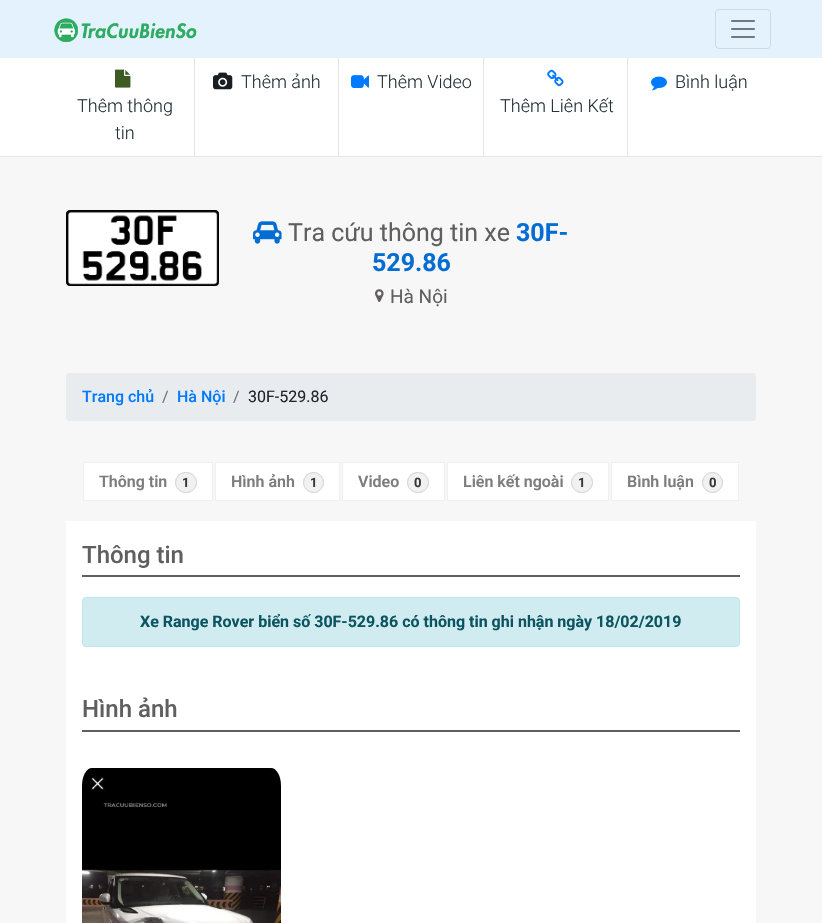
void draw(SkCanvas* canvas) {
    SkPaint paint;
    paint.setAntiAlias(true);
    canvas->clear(0xFFF7F7F7);
    paint.setColor(0xFFE3F2FD);
    canvas->drawRect(SkRect::MakeXYWH(0, 0, 822, 58), paint);
    canvas->drawImageRect(SkImages::DeferredFromEncodedData(SkData::MakeFromFileName("img1.png")), SkRect::MakeXYWH(54, 18, 143, 24), SkSamplingOptions());
    paint.setStyle(SkPaint::kStroke_Style);
    paint.setStrokeWidth(1);
    paint.setColor(0xFFCCDAE4);
    canvas->drawRoundRect(SkRect::MakeXYWH(715.5f, 9.5f, 55, 39), 3.5f, 3.5f, paint);
    canvas->drawImageRect(SkImages::DeferredFromEncodedData(SkData::MakeFromFileName("img2.png")), SkRect::MakeXYWH(731, 20, 24, 18), SkSamplingOptions());
    paint.setStyle(SkPaint::kFill_Style);
    paint.setColor(0xFFFFFFFF);
    canvas->drawRect(SkRect::MakeXYWH(0, 58, 822, 98), paint);
    paint.setColor(0xFFE5E5E5);
    canvas->drawRect(SkRect::MakeXYWH(0, 156, 822, 1), paint);
    canvas->drawRect(SkRect::MakeXYWH(338, 58, 1, 98), paint);
    canvas->drawImageRect(SkImages::DeferredFromEncodedData(SkData::MakeFromFileName("img3.png")), SkRect::MakeXYWH(213, 72, 20, 18), SkSamplingOptions());
    SkFont font1(fontMgr->matchFamilyStyle("Roboto", SkFontStyle(300, SkFontStyle::kNormal_Width, SkFontStyle::kUpright_Slant)), 18);
    font1.setSubpixel(true);
    paint.setColor(0xFF243238);
    canvas->drawString("Thêm ảnh", 241, 88, font1, paint);
    paint.setColor(0xFFE5E5E5);
    canvas->drawRect(SkRect::MakeXYWH(483, 58, 1, 98), paint);
    canvas->drawImageRect(SkImages::DeferredFromEncodedData(SkData::MakeFromFileName("img4.png")), SkRect::MakeXYWH(351, 75, 18, 13), SkSamplingOptions());
    paint.setColor(0xFF243238);
    canvas->drawString("Thêm Video", 377, 88, font1, paint);
    canvas->drawImageRect(SkImages::DeferredFromEncodedData(SkData::MakeFromFileName("img5.png")), SkRect::MakeXYWH(651, 76, 16, 15), SkSamplingOptions());
    canvas->drawString("Bình luận", 675, 88, font1, paint);
    paint.setColor(0xFFE5E5E5);
    canvas->drawRect(SkRect::MakeXYWH(194, 58, 1, 98), paint);
    canvas->drawImageRect(SkImages::DeferredFromEncodedData(SkData::MakeFromFileName("img6.png")), SkRect::MakeXYWH(115, 69, 16, 19), SkSamplingOptions());
    paint.setColor(0xFF243238);
    canvas->drawString("Thêm thông", 77, 112, font1, paint);
    canvas->drawString("tin", 115, 139, font1, paint);
    paint.setColor(0xFFE5E5E5);
    canvas->drawRect(SkRect::MakeXYWH(627, 58, 1, 98), paint);
    canvas->drawImageRect(SkImages::DeferredFromEncodedData(SkData::MakeFromFileName("img7.png")), SkRect::MakeXYWH(547, 69, 17, 18), SkSamplingOptions());
    paint.setColor(0xFF243238);
    canvas->drawString("Thêm Liên Kết", 500, 112, font1, paint);
    canvas->drawImageRect(SkImages::DeferredFromEncodedData(SkData::MakeFromFileName("img8.png")), SkRect::MakeXYWH(66, 210, 153, 76), SkSamplingOptions());
    canvas->drawImageRect(SkImages::DeferredFromEncodedData(SkData::MakeFromFileName("img9.png")), SkRect::MakeXYWH(253, 221, 29, 23), SkSamplingOptions());
    SkFont font2(fontMgr->matchFamilyStyle("Roboto", SkFontStyle::Normal()), 25);
    font2.setSubpixel(true);
    paint.setColor(0xFF5F5F5F);
    canvas->drawString("Tra cứu thông tin xe", 288, 241, font2, paint);
    SkFont font3(fontMgr->matchFamilyStyle("Roboto", SkFontStyle::Bold()), 25);
    font3.setSubpixel(true);
    paint.setColor(0xFF036DD4);
    canvas->drawString("30F-", 516, 241, font3, paint);
    canvas->drawString("529.86", 372, 271, font3, paint);
    canvas->drawImageRect(SkImages::DeferredFromEncodedData(SkData::MakeFromFileName("img10.png")), SkRect::MakeXYWH(375, 289, 9, 13), SkSamplingOptions());
    SkFont font4(fontMgr->matchFamilyStyle("Roboto", SkFontStyle::Normal()), 19);
    font4.setSubpixel(true);
    paint.setColor(0xFF5F5F5F);
    canvas->drawString("Hà Nội", 390, 303, font4, paint);
    paint.setColor(0xFFE9ECEF);
    canvas->drawRoundRect(SkRect::MakeXYWH(66, 373, 690, 48), 4, 4, paint);
    SkFont font5(fontMgr->matchFamilyStyle("Roboto", SkFontStyle(500, SkFontStyle::kNormal_Width, SkFontStyle::kUpright_Slant)), 16);
    font5.setSubpixel(true);
    paint.setColor(0xFF007BFF);
    canvas->drawString("Trang chủ", 82, 402, font5, paint);
    SkFont font6(fontMgr->matchFamilyStyle("Roboto", SkFontStyle::Normal()), 16);
    font6.setSubpixel(true);
    paint.setColor(0xFF6C757D);
    canvas->drawString("/", 162, 402, font6, paint);
    paint.setColor(0xFF007BFF);
    canvas->drawString("Hà Nội", 177, 402, font5, paint);
    paint.setColor(0xFF6C757D);
    canvas->drawString("/", 233, 402, font6, paint);
    paint.setColor(0xFF212529);
    canvas->drawString("30F-529.86", 248, 402, font6, paint);
    paint.setColor(0xFFFFFFFF);
    canvas->drawRect(SkRect::MakeXYWH(83.5f, 462.5f, 129, 38), paint);
    paint.setStyle(SkPaint::kStroke_Style);
    paint.setColor(0xFFF0F0F0);
    canvas->drawRect(SkRect::MakeXYWH(83.5f, 462.5f, 129, 38), paint);
    SkFont font7(fontMgr->matchFamilyStyle("Roboto", SkFontStyle(600, SkFontStyle::kNormal_Width, SkFontStyle::kUpright_Slant)), 16);
    font7.setSubpixel(true);
    paint.setStyle(SkPaint::kFill_Style);
    paint.setColor(0xFF7D7D7D);
    canvas->drawString("Thông tin", 99, 487, font7, paint);
    paint.setColor(0xFFF1F1F1);
    canvas->drawRoundRect(SkRect::MakeXYWH(175.5f, 472.5f, 21, 20), 10, 10, paint);
    paint.setStyle(SkPaint::kStroke_Style);
    paint.setColor(0xFFD0D0D0);
    canvas->drawRoundRect(SkRect::MakeXYWH(175.5f, 472.5f, 21, 20), 10, 10, paint);
    SkFont font8(fontMgr->matchFamilyStyle("Roboto", SkFontStyle::Bold()), 13);
    font8.setSubpixel(true);
    paint.setStyle(SkPaint::kFill_Style);
    paint.setColor(0xFF373737);
    canvas->drawString("1", 182, 487, font8, paint);
    paint.setColor(0xFFFFFFFF);
    canvas->drawRect(SkRect::MakeXYWH(215.5f, 462.5f, 124, 38), paint);
    paint.setStyle(SkPaint::kStroke_Style);
    paint.setColor(0xFFF0F0F0);
    canvas->drawRect(SkRect::MakeXYWH(215.5f, 462.5f, 124, 38), paint);
    paint.setStyle(SkPaint::kFill_Style);
    paint.setColor(0xFF7D7D7D);
    canvas->drawString("Hình ảnh", 231, 487, font7, paint);
    paint.setColor(0xFFF1F1F1);
    canvas->drawCircle(313.5f, 482.5f, 10, paint);
    paint.setStyle(SkPaint::kStroke_Style);
    paint.setColor(0xFFD0D0D0);
    canvas->drawCircle(313.5f, 482.5f, 10, paint);
    paint.setStyle(SkPaint::kFill_Style);
    paint.setColor(0xFF373737);
    canvas->drawString("1", 310, 487, font8, paint);
    paint.setColor(0xFFFFFFFF);
    canvas->drawRect(SkRect::MakeXYWH(342.5f, 462.5f, 102, 38), paint);
    paint.setStyle(SkPaint::kStroke_Style);
    paint.setColor(0xFFF0F0F0);
    canvas->drawRect(SkRect::MakeXYWH(342.5f, 462.5f, 102, 38), paint);
    paint.setStyle(SkPaint::kFill_Style);
    paint.setColor(0xFF7D7D7D);
    canvas->drawString("Video", 358, 487, font7, paint);
    paint.setColor(0xFFF1F1F1);
    canvas->drawRoundRect(SkRect::MakeXYWH(407.5f, 472.5f, 21, 20), 10, 10, paint);
    paint.setStyle(SkPaint::kStroke_Style);
    paint.setColor(0xFFD0D0D0);
    canvas->drawRoundRect(SkRect::MakeXYWH(407.5f, 472.5f, 21, 20), 10, 10, paint);
    paint.setStyle(SkPaint::kFill_Style);
    paint.setColor(0xFF373737);
    canvas->drawString("0", 414, 487, font8, paint);
    paint.setColor(0xFFFFFFFF);
    canvas->drawRect(SkRect::MakeXYWH(447.5f, 462.5f, 161, 38), paint);
    paint.setStyle(SkPaint::kStroke_Style);
    paint.setColor(0xFFF0F0F0);
    canvas->drawRect(SkRect::MakeXYWH(447.5f, 462.5f, 161, 38), paint);
    paint.setStyle(SkPaint::kFill_Style);
    paint.setColor(0xFF7D7D7D);
    canvas->drawString("Liên kết ngoài", 463, 487, font7, paint);
    paint.setColor(0xFFF1F1F1);
    canvas->drawRoundRect(SkRect::MakeXYWH(571.5f, 472.5f, 21, 20), 10, 10, paint);
    paint.setStyle(SkPaint::kStroke_Style);
    paint.setColor(0xFFD0D0D0);
    canvas->drawRoundRect(SkRect::MakeXYWH(571.5f, 472.5f, 21, 20), 10, 10, paint);
    paint.setStyle(SkPaint::kFill_Style);
    paint.setColor(0xFF373737);
    canvas->drawString("1", 578, 487, font8, paint);
    paint.setColor(0xFFFFFFFF);
    canvas->drawRect(SkRect::MakeXYWH(611.5f, 462.5f, 127, 38), paint);
    paint.setStyle(SkPaint::kStroke_Style);
    paint.setColor(0xFFF0F0F0);
    canvas->drawRect(SkRect::MakeXYWH(611.5f, 462.5f, 127, 38), paint);
    paint.setStyle(SkPaint::kFill_Style);
    paint.setColor(0xFF7D7D7D);
    canvas->drawString("Bình luận", 627, 487, font7, paint);
    paint.setColor(0xFFF1F1F1);
    canvas->drawCircle(712.5f, 482.5f, 10, paint);
    paint.setStyle(SkPaint::kStroke_Style);
    paint.setColor(0xFFD0D0D0);
    canvas->drawCircle(712.5f, 482.5f, 10, paint);
    paint.setStyle(SkPaint::kFill_Style);
    paint.setColor(0xFF373737);
    canvas->drawString("0", 709, 487, font8, paint);
    paint.setColor(0xFFFFFFFF);
    canvas->drawRect(SkRect::MakeXYWH(66, 521, 690, 402), paint);
    paint.setColor(0xFF5F5F5F);
    canvas->drawRect(SkRect::MakeXYWH(82, 575, 658, 2), paint);
    SkFont font9(fontMgr->matchFamilyStyle("Roboto", SkFontStyle(500, SkFontStyle::kNormal_Width, SkFontStyle::kUpright_Slant)), 24);
    font9.setSubpixel(true);
    canvas->drawString("Thông tin", 82, 563, font9, paint);
    paint.setColor(0xFFD1ECF1);
    canvas->drawRoundRect(SkRect::MakeXYWH(82.5f, 597.5f, 657, 49), 3.5f, 3.5f, paint);
    paint.setStyle(SkPaint::kStroke_Style);
    paint.setColor(0xFFBEE5EB);
    canvas->drawRoundRect(SkRect::MakeXYWH(82.5f, 597.5f, 657, 49), 3.5f, 3.5f, paint);
    SkFont font10(fontMgr->matchFamilyStyle("Roboto", SkFontStyle::Bold()), 16);
    font10.setSubpixel(true);
    paint.setStyle(SkPaint::kFill_Style);
    paint.setColor(0xFF0C5460);
    canvas->drawString("Xe Range Rover biển số 30F-529.86 có thông tin ghi nhận ngày 18/02/2019", 140, 627, font10, paint);
    paint.setColor(0xFF5F5F5F);
    canvas->drawRect(SkRect::MakeXYWH(82, 730, 658, 2), paint);
    canvas->drawString("Hình ảnh", 82, 717, font9, paint);
    canvas->drawImageRect(SkImages::DeferredFromEncodedData(SkData::MakeFromFileName("img11.png")), SkRect::MakeXYWH(82, 768, 199, 155), SkSamplingOptions());
}
